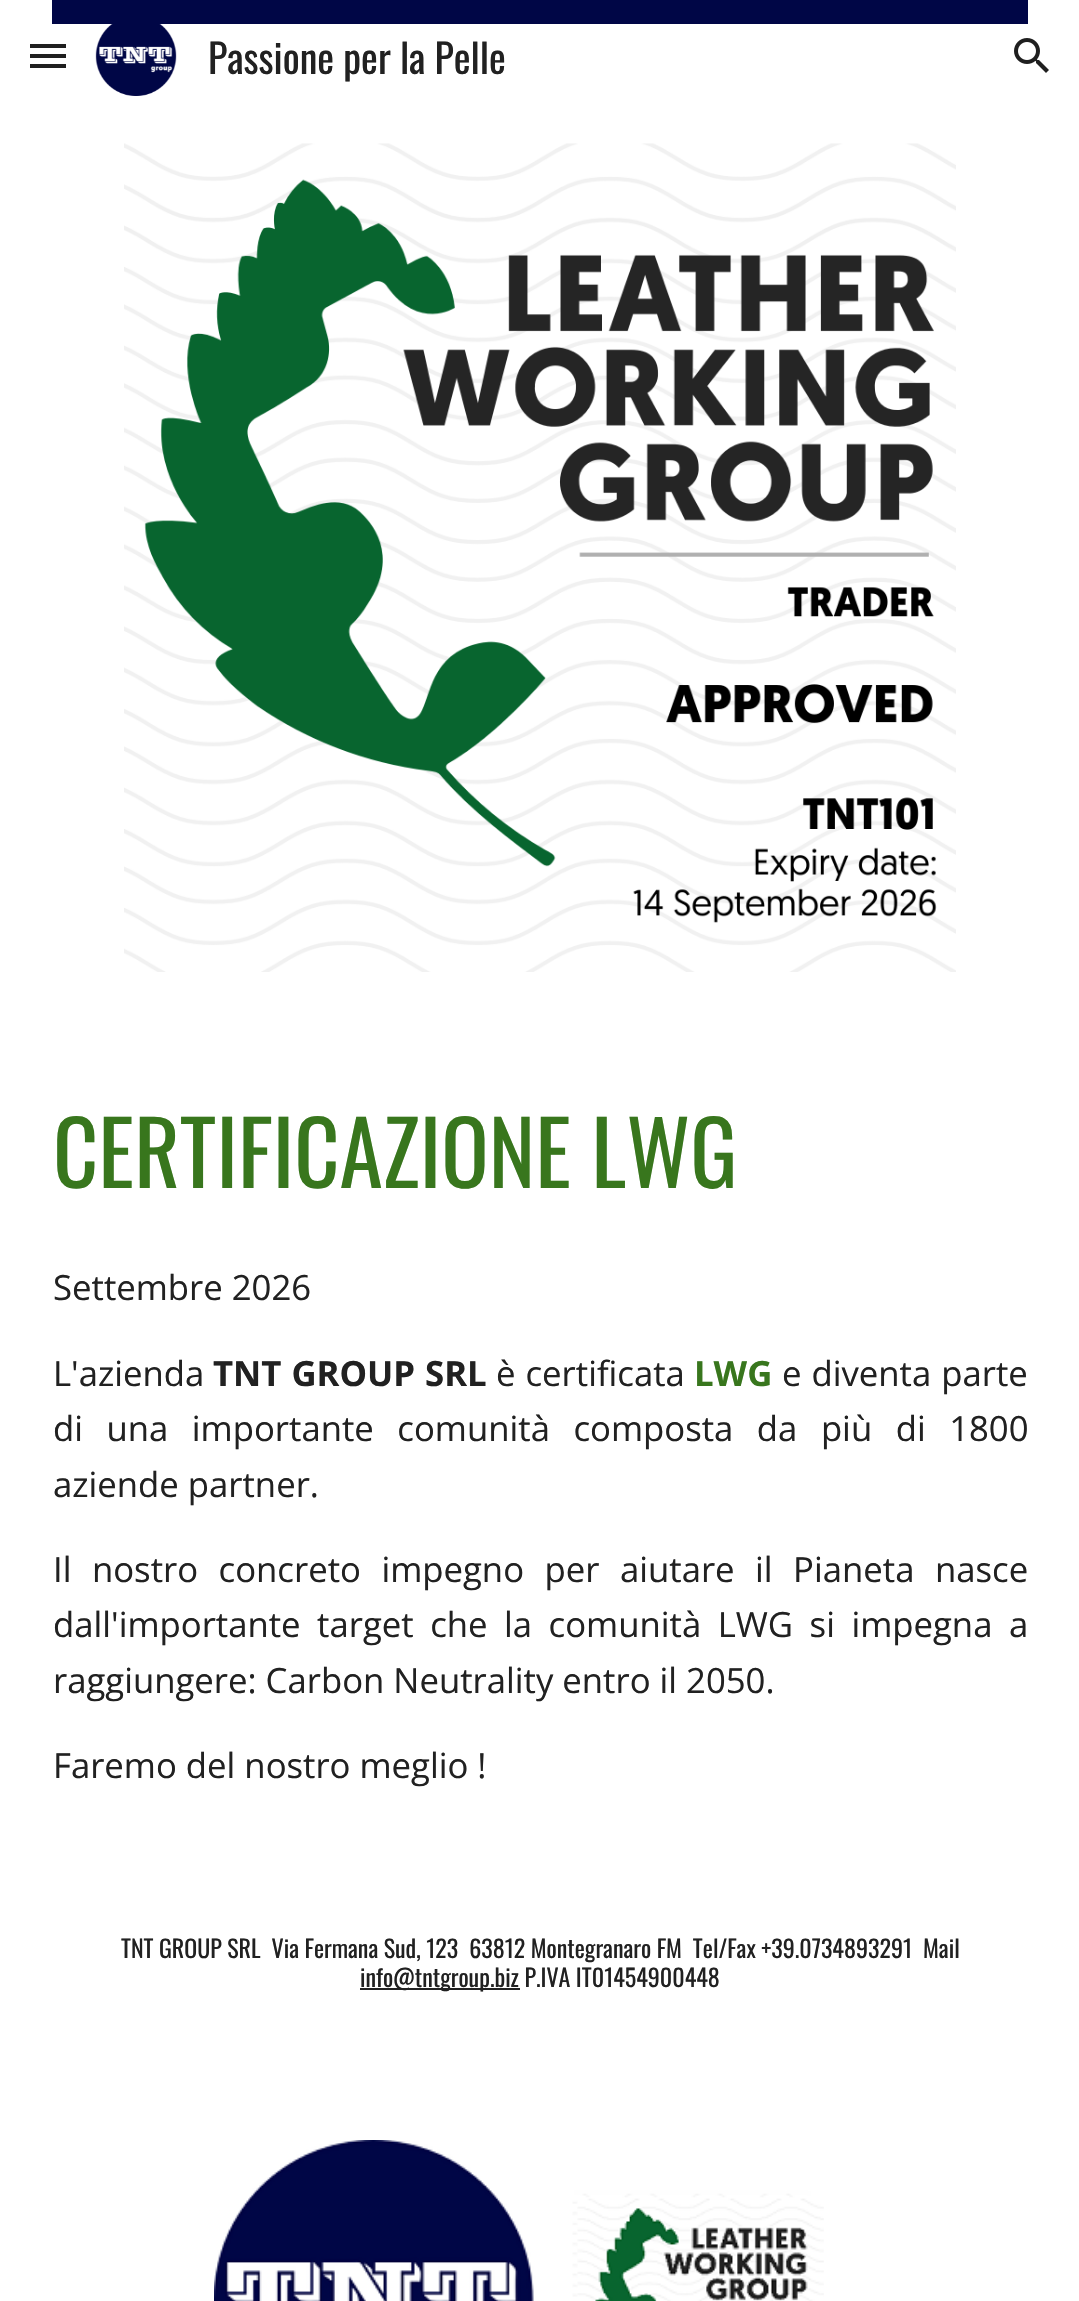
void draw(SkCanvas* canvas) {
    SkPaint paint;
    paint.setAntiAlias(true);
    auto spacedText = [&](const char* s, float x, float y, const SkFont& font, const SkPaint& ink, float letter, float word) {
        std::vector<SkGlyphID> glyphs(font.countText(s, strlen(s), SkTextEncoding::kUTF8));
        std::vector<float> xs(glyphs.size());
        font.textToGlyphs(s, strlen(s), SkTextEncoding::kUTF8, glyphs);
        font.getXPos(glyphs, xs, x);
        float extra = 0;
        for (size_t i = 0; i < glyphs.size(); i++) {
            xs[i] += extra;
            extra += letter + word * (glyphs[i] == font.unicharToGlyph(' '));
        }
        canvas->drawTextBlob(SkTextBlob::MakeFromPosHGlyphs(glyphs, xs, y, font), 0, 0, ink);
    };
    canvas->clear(0xFFFFFFFF);
    paint.setColor(0xFF1F1F1F);
    canvas->drawRect(SkRect::MakeXYWH(30, 44, 36, 4), paint);
    canvas->drawRect(SkRect::MakeXYWH(30, 54, 36, 4), paint);
    canvas->drawRect(SkRect::MakeXYWH(30, 64, 36, 4), paint);
    canvas->drawImageRect(SkImages::DeferredFromEncodedData(SkData::MakeFromFileName("img1.png")), SkRect::MakeXYWH(95, 24, 82, 72), SkSamplingOptions());
    SkFont font1(fontMgr->matchFamilyStyle("Oswald", SkFontStyle::Normal()), 40);
    font1.setSubpixel(true);
    paint.setColor(0xFF212121);
    canvas->drawString("Passione per la Pelle", 208, 74, font1, paint);
    canvas->drawImageRect(SkImages::DeferredFromEncodedData(SkData::MakeFromFileName("img2.png")), SkRect::MakeXYWH(1014, 38, 35, 35), SkSamplingOptions());
    paint.setColor(0xFF000646);
    canvas->drawRect(SkRect::MakeXYWH(52, 0, 976, 24), paint);
    canvas->drawImageRect(SkImages::DeferredFromEncodedData(SkData::MakeFromFileName("img3.png")), SkRect::MakeXYWH(124, 143, 832, 829), SkSamplingOptions());
    SkFont font2(fontMgr->matchFamilyStyle("Oswald", SkFontStyle::Normal()), 88);
    font2.setSubpixel(true);
    paint.setColor(0xFF38761D);
    canvas->drawString("CERTIFICAZIONE LWG", 53, 1188, font2, paint);
    SkFont font3(fontMgr->matchFamilyStyle("Open Sans", SkFontStyle::Normal()), 34.7f);
    font3.setSubpixel(true);
    paint.setColor(0xFF212121);
    canvas->drawString("Settembre 2026", 53, 1300, font3, paint);
    canvas->drawString("L'azienda", 53, 1386, font3, paint);
    SkFont font4(fontMgr->matchFamilyStyle("Open Sans", SkFontStyle::Bold()), 34.7f);
    font4.setSubpixel(true);
    spacedText("TNT GROUP SRL", 213, 1386, font4, paint, 0, 1);
    spacedText("è certificata", 496, 1386, font3, paint, 0, 1);
    paint.setColor(0xFF38761D);
    canvas->drawString("LWG", 694, 1386, font4, paint);
    paint.setColor(0xFF212121);
    spacedText("e diventa parte", 782, 1386, font3, paint, 0, 1);
    spacedText("di una importante comunità composta da più di 1800", 53, 1441, font3, paint, 0, 14.5f);
    canvas->drawString("aziende partner.", 53, 1497, font3, paint);
    spacedText("Il nostro concreto impegno per aiutare il Pianeta nasce", 53, 1582, font3, paint, 0, 11.5f);
    spacedText("dall'importante target che la comunità LWG si impegna a", 53, 1637, font3, paint, 0, 7.5f);
    canvas->drawString("raggiungere: Carbon Neutrality entro il 2050.", 53, 1693, font3, paint);
    canvas->drawString("Faremo del nostro meglio !", 53, 1778, font3, paint);
    SkFont font5(fontMgr->matchFamilyStyle("Oswald", SkFontStyle::Normal()), 24);
    font5.setSubpixel(true);
    canvas->drawString("TNT GROUP SRL  Via Fermana Sud, 123  63812 Montegranaro FM  Tel/Fax +39.0734893291  Mail", 121, 1958, font5, paint);
    canvas->drawRect(SkRect::MakeXYWH(360, 1988, 160, 2), paint);
    canvas->drawString("info@tntgroup.biz P.IVA IT01454900448", 360, 1987, font5, paint);
    canvas->drawImageRect(SkImages::DeferredFromEncodedData(SkData::MakeFromFileName("img4.png")), SkRect::MakeXYWH(214, 2140, 610, 161), SkSamplingOptions());
}
